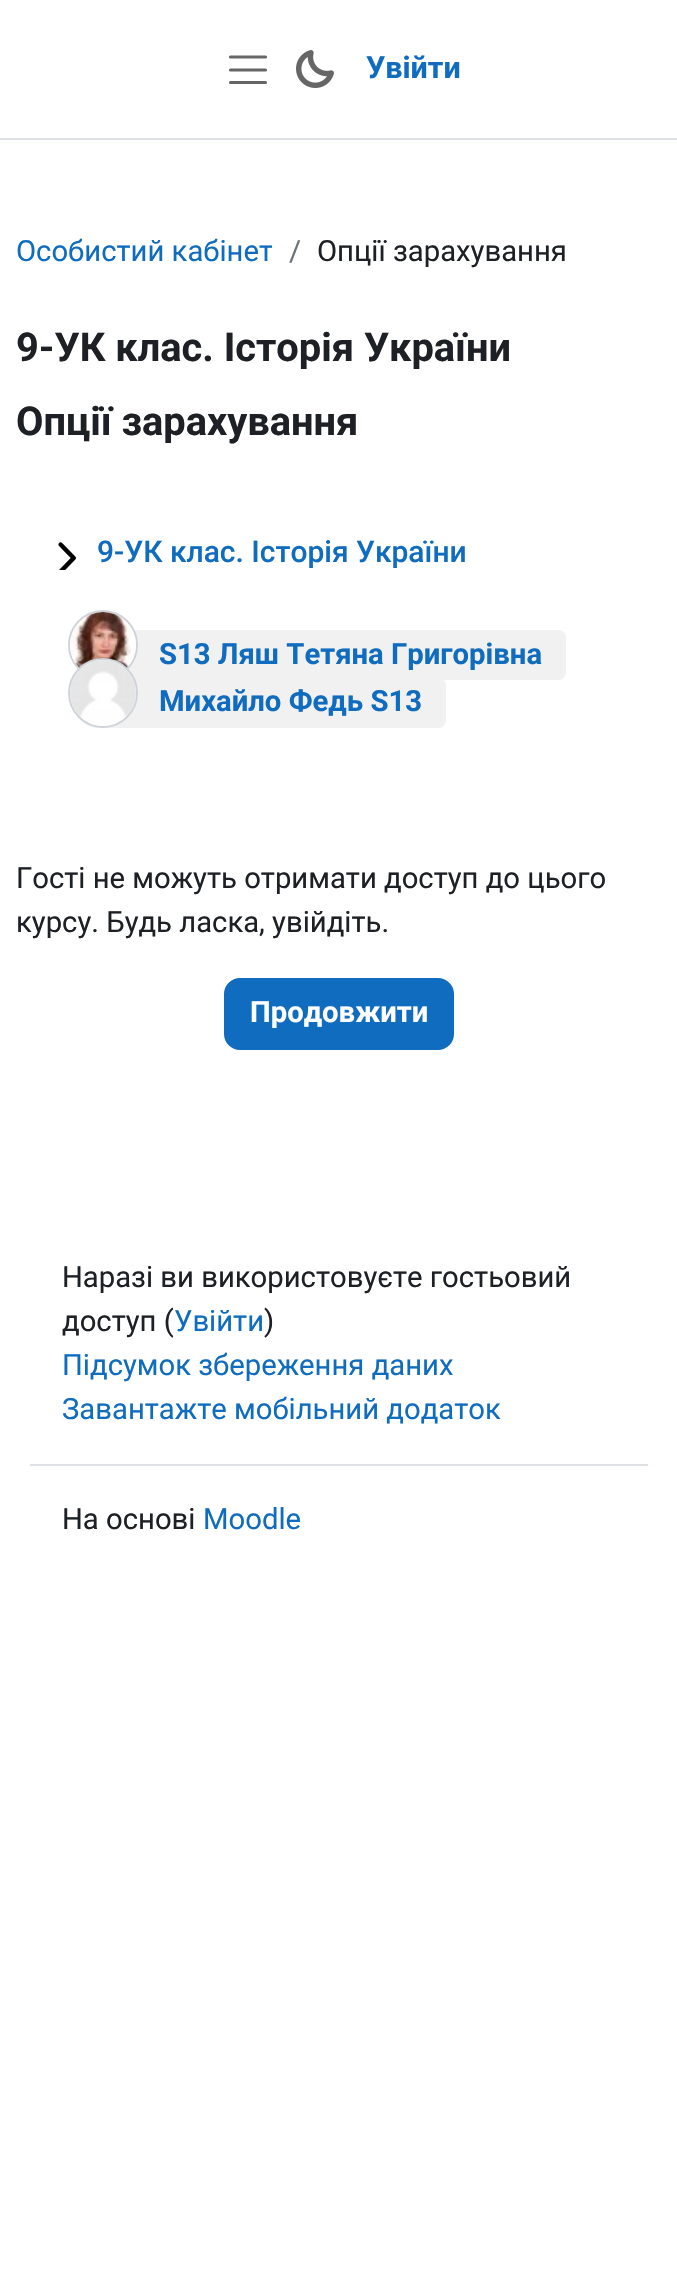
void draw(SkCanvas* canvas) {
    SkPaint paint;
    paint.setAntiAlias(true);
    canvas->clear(0xFFFFFFFF);
    paint.setColor(0xFFDEE2E6);
    canvas->drawRect(SkRect::MakeXYWH(0, 138, 677, 2), paint);
    paint.setStyle(SkPaint::kStroke_Style);
    paint.setStrokeWidth(3.2f);
    paint.setStrokeCap(SkPaint::kRound_Cap);
    paint.setColor(0xFF666666);
    canvas->drawPath(SkPathBuilder().moveTo(230.5f, 57).lineTo(265.5f, 57).moveTo(230.5f, 70).lineTo(265.5f, 70).moveTo(230.5f, 82.5f).lineTo(265.5f, 82.5f).detach(), paint);
    canvas->drawImageRect(SkImages::DeferredFromEncodedData(SkData::MakeFromFileName("img1.png")), SkRect::MakeXYWH(296, 50, 38, 38), SkSamplingOptions());
    SkFont font1(fontMgr->matchFamilyStyle("Roboto", SkFontStyle::Bold()), 30.5f);
    font1.setSubpixel(true);
    paint.setStyle(SkPaint::kFill_Style);
    paint.setColor(0xFF0F6CBF);
    canvas->drawString("Увійти", 366, 78, font1, paint);
    canvas->save();
    canvas->clipRect(SkRect::MakeXYWH(16, 230, 256, 44));
    SkFont font2(fontMgr->matchFamilyStyle("Roboto", SkFontStyle::Normal()), 29.25f);
    font2.setSubpixel(true);
    canvas->drawString("Особистий кабінет", 16, 261, font2, paint);
    canvas->restore();
    paint.setColor(0xFF6A737B);
    canvas->drawString("/", 289, 261, font2, paint);
    paint.setColor(0xFF1D2125);
    canvas->drawString("Опції зарахування", 317, 261, font2, paint);
    SkFont font3(fontMgr->matchFamilyStyle("Roboto", SkFontStyle::Bold()), 39.8f);
    font3.setSubpixel(true);
    canvas->drawString("9-УК клас. Історія України", 16, 361, font3, paint);
    canvas->drawString("Опції зарахування", 16, 435, font3, paint);
    canvas->drawImageRect(SkImages::DeferredFromEncodedData(SkData::MakeFromFileName("img2.png")), SkRect::MakeXYWH(58, 542, 18, 28), SkSamplingOptions());
    SkFont font4(fontMgr->matchFamilyStyle("Roboto", SkFontStyle(500, SkFontStyle::kNormal_Width, SkFontStyle::kUpright_Slant)), 30);
    font4.setSubpixel(true);
    paint.setColor(0xFF0F6CBF);
    canvas->drawString("9-УК клас. Історія України", 97, 562, font4, paint);
    paint.setColor(0xFFF1F1F1);
    canvas->drawPath(SkPathBuilder().moveTo(99, 630).lineTo(558, 630).cubicTo(562.5f, 630, 566, 633.5f, 566, 638).lineTo(566, 672).cubicTo(566, 676.5f, 562.5f, 680, 558, 680).lineTo(99, 680).cubicTo(85, 680, 74, 669, 74, 655).cubicTo(74, 641, 85, 630, 99, 630).close().detach(), paint);
    paint.setColor(0xFFFFFFFF);
    canvas->drawCircle(103, 645, 34, paint);
    paint.setStyle(SkPaint::kStroke_Style);
    paint.setStrokeWidth(2);
    paint.setStrokeCap(SkPaint::kButt_Cap);
    paint.setColor(0xFFCED4DA);
    canvas->drawCircle(103, 645, 34, paint);
    canvas->drawImageRect(SkImages::DeferredFromEncodedData(SkData::MakeFromFileName("img3.png")), SkRect::MakeXYWH(70, 612, 66, 56), SkSamplingOptions());
    SkFont font5(fontMgr->matchFamilyStyle("Roboto", SkFontStyle::Bold()), 29.25f);
    font5.setSubpixel(true);
    paint.setStyle(SkPaint::kFill_Style);
    paint.setColor(0xFF0F6CBF);
    canvas->drawString("S13 Ляш Тетяна Григорівна", 159, 664, font5, paint);
    paint.setColor(0xFFF1F1F1);
    canvas->drawPath(SkPathBuilder().moveTo(99, 678).lineTo(438, 678).cubicTo(442.5f, 678, 446, 681.5f, 446, 686).lineTo(446, 720).cubicTo(446, 724.5f, 442.5f, 728, 438, 728).lineTo(99, 728).cubicTo(85, 728, 74, 717, 74, 703).cubicTo(74, 689, 85, 678, 99, 678).close().detach(), paint);
    paint.setColor(0xFFFFFFFF);
    canvas->drawCircle(103, 693, 34, paint);
    paint.setStyle(SkPaint::kStroke_Style);
    paint.setColor(0xFFCED4DA);
    canvas->drawCircle(103, 693, 34, paint);
    canvas->drawImageRect(SkImages::DeferredFromEncodedData(SkData::MakeFromFileName("img4.png")), SkRect::MakeXYWH(70, 660, 66, 66), SkSamplingOptions());
    paint.setStyle(SkPaint::kFill_Style);
    paint.setColor(0xFF0F6CBF);
    canvas->drawString("Михайло Федь S13", 159, 711, font5, paint);
    paint.setColor(0xFF1D2125);
    canvas->drawString("Гості не можуть отримати доступ до цього", 16, 888, font2, paint);
    canvas->drawString("курсу. Будь ласка, увійдіть.", 16, 932, font2, paint);
    paint.setColor(0xFF0F6CBF);
    canvas->drawRoundRect(SkRect::MakeXYWH(225, 979, 228, 70), 15, 15, paint);
    paint.setStyle(SkPaint::kStroke_Style);
    canvas->drawRoundRect(SkRect::MakeXYWH(225, 979, 228, 70), 15, 15, paint);
    paint.setStyle(SkPaint::kFill_Style);
    paint.setColor(0xFFFFFFFF);
    canvas->drawString("Продовжити", 250, 1022, font5, paint);
    paint.setColor(0xFFDEE2E6);
    canvas->drawRect(SkRect::MakeXYWH(30, 1464, 618, 2), paint);
    paint.setColor(0xFF1D2125);
    canvas->drawString("Наразі ви використовуєте гостьовий", 62, 1287, font2, paint);
    canvas->drawString("доступ (", 62, 1331, font2, paint);
    paint.setColor(0xFF0F6CBF);
    canvas->drawString("Увійти", 174, 1331, font2, paint);
    paint.setColor(0xFF1D2125);
    canvas->drawString(")", 264, 1331, font2, paint);
    paint.setColor(0xFF0F6CBF);
    canvas->drawString("Підсумок збереження даних", 62, 1375, font2, paint);
    canvas->drawString("Завантажте мобільний додаток", 62, 1419, font2, paint);
    paint.setColor(0xFF1D2125);
    canvas->drawString("На основі", 62, 1529, font2, paint);
    paint.setColor(0xFF0F6CBF);
    canvas->drawString("Moodle", 203, 1529, font2, paint);
}
